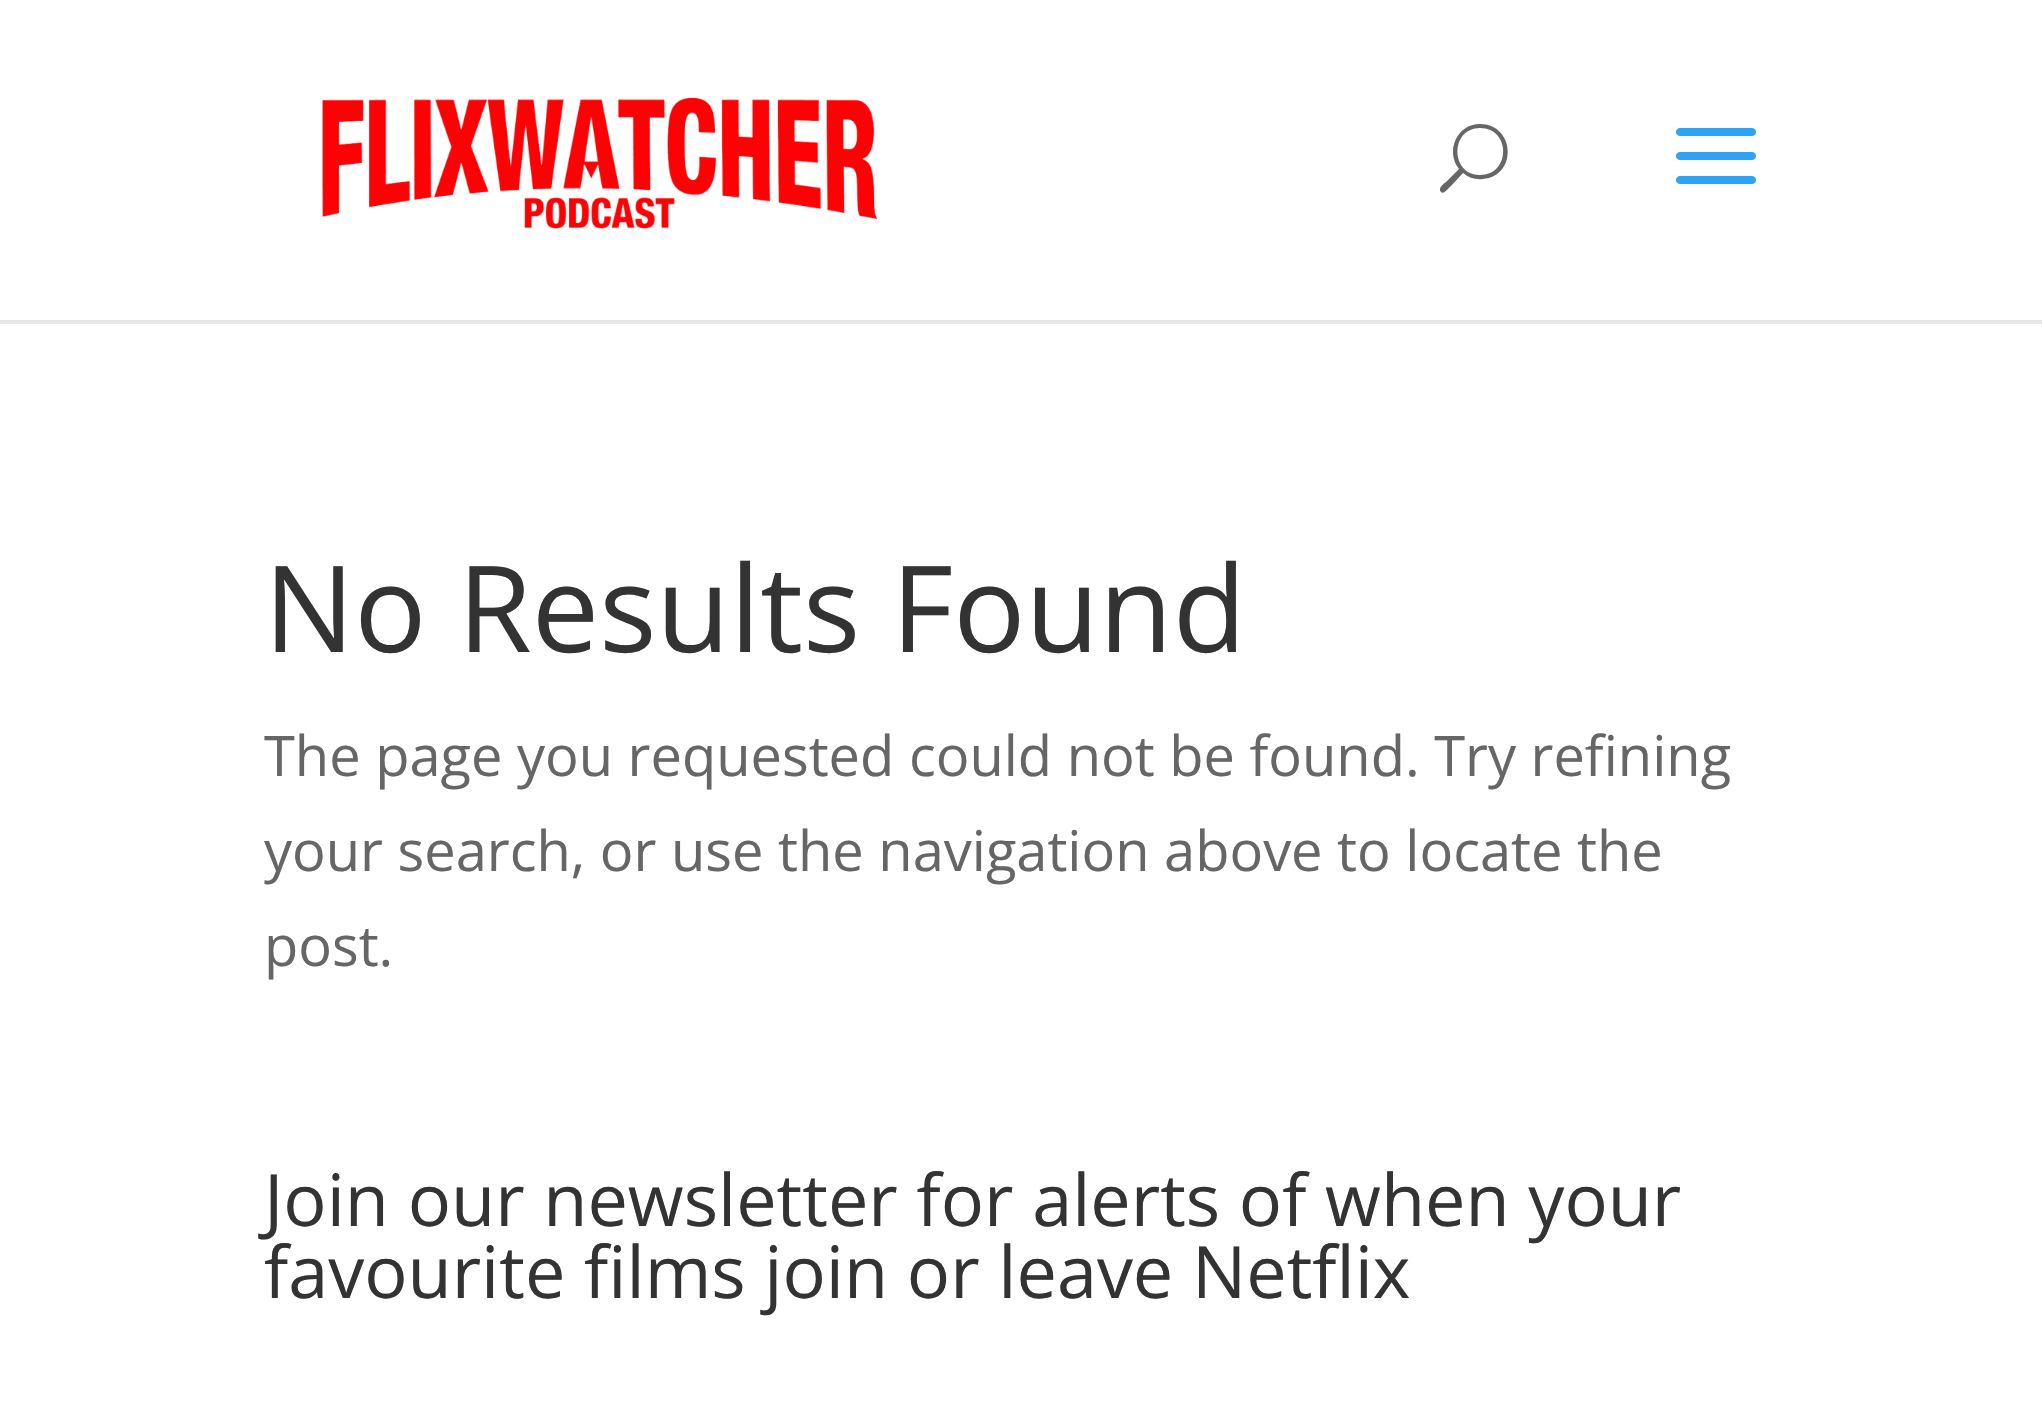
void draw(SkCanvas* canvas) {
    SkPaint paint;
    paint.setAntiAlias(true);
    canvas->clear(0xFFFFFFFF);
    paint.setColor(0xFFE6E6E6);
    canvas->drawRect(SkRect::MakeXYWH(0, 320, 2042, 4), paint);
    canvas->drawImageRect(SkImages::DeferredFromEncodedData(SkData::MakeFromFileName("img1.png")), SkRect::MakeXYWH(322, 97, 556, 132), SkSamplingOptions());
    paint.setColor(0xFF666666);
    canvas->drawPath(SkPathBuilder().moveTo(1480, 124).cubicTo(1457, 124, 1445, 151, 1459, 169).lineTo(1447, 181).cubicTo(1445, 183, 1437, 188, 1441, 192).cubicTo(1444, 195, 1449, 187, 1451, 186).lineTo(1463, 173).cubicTo(1469, 178, 1476, 180, 1483, 179).cubicTo(1518, 176, 1515, 124, 1480, 124).close().moveTo(1480, 175).cubicTo(1450, 175, 1450, 128, 1480, 128).cubicTo(1511, 128, 1511, 175, 1480, 175).close().detach(), paint);
    canvas->drawImageRect(SkImages::DeferredFromEncodedData(SkData::MakeFromFileName("img2.png")), SkRect::MakeXYWH(1676, 128, 80, 56), SkSamplingOptions());
    SkFont font1(fontMgr->matchFamilyStyle("Open Sans", SkFontStyle::Normal()), 120);
    font1.setSubpixel(true);
    paint.setColor(0xFF333333);
    canvas->drawString("No Results Found", 264, 652, font1, paint);
    SkFont font2(fontMgr->matchFamilyStyle("Open Sans", SkFontStyle::Normal()), 56);
    font2.setSubpixel(true);
    paint.setColor(0xFF666666);
    canvas->drawString("The page you requested could not be found. Try refining", 264, 776, font2, paint);
    canvas->drawString("your search, or use the navigation above to locate the", 264, 871, font2, paint);
    canvas->drawString("post.", 264, 966, font2, paint);
    SkFont font3(fontMgr->matchFamilyStyle("Open Sans", SkFontStyle::Normal()), 72);
    font3.setSubpixel(true);
    paint.setColor(0xFF333333);
    canvas->drawString("Join our newsletter for alerts of when your", 264, 1226, font3, paint);
    canvas->drawString("favourite films join or leave Netflix", 264, 1298, font3, paint);
    paint.setColor(0xFFFBFBFC);
    canvas->drawRect(SkRect::MakeXYWH(264, 1380, 1, 1), paint);
}
